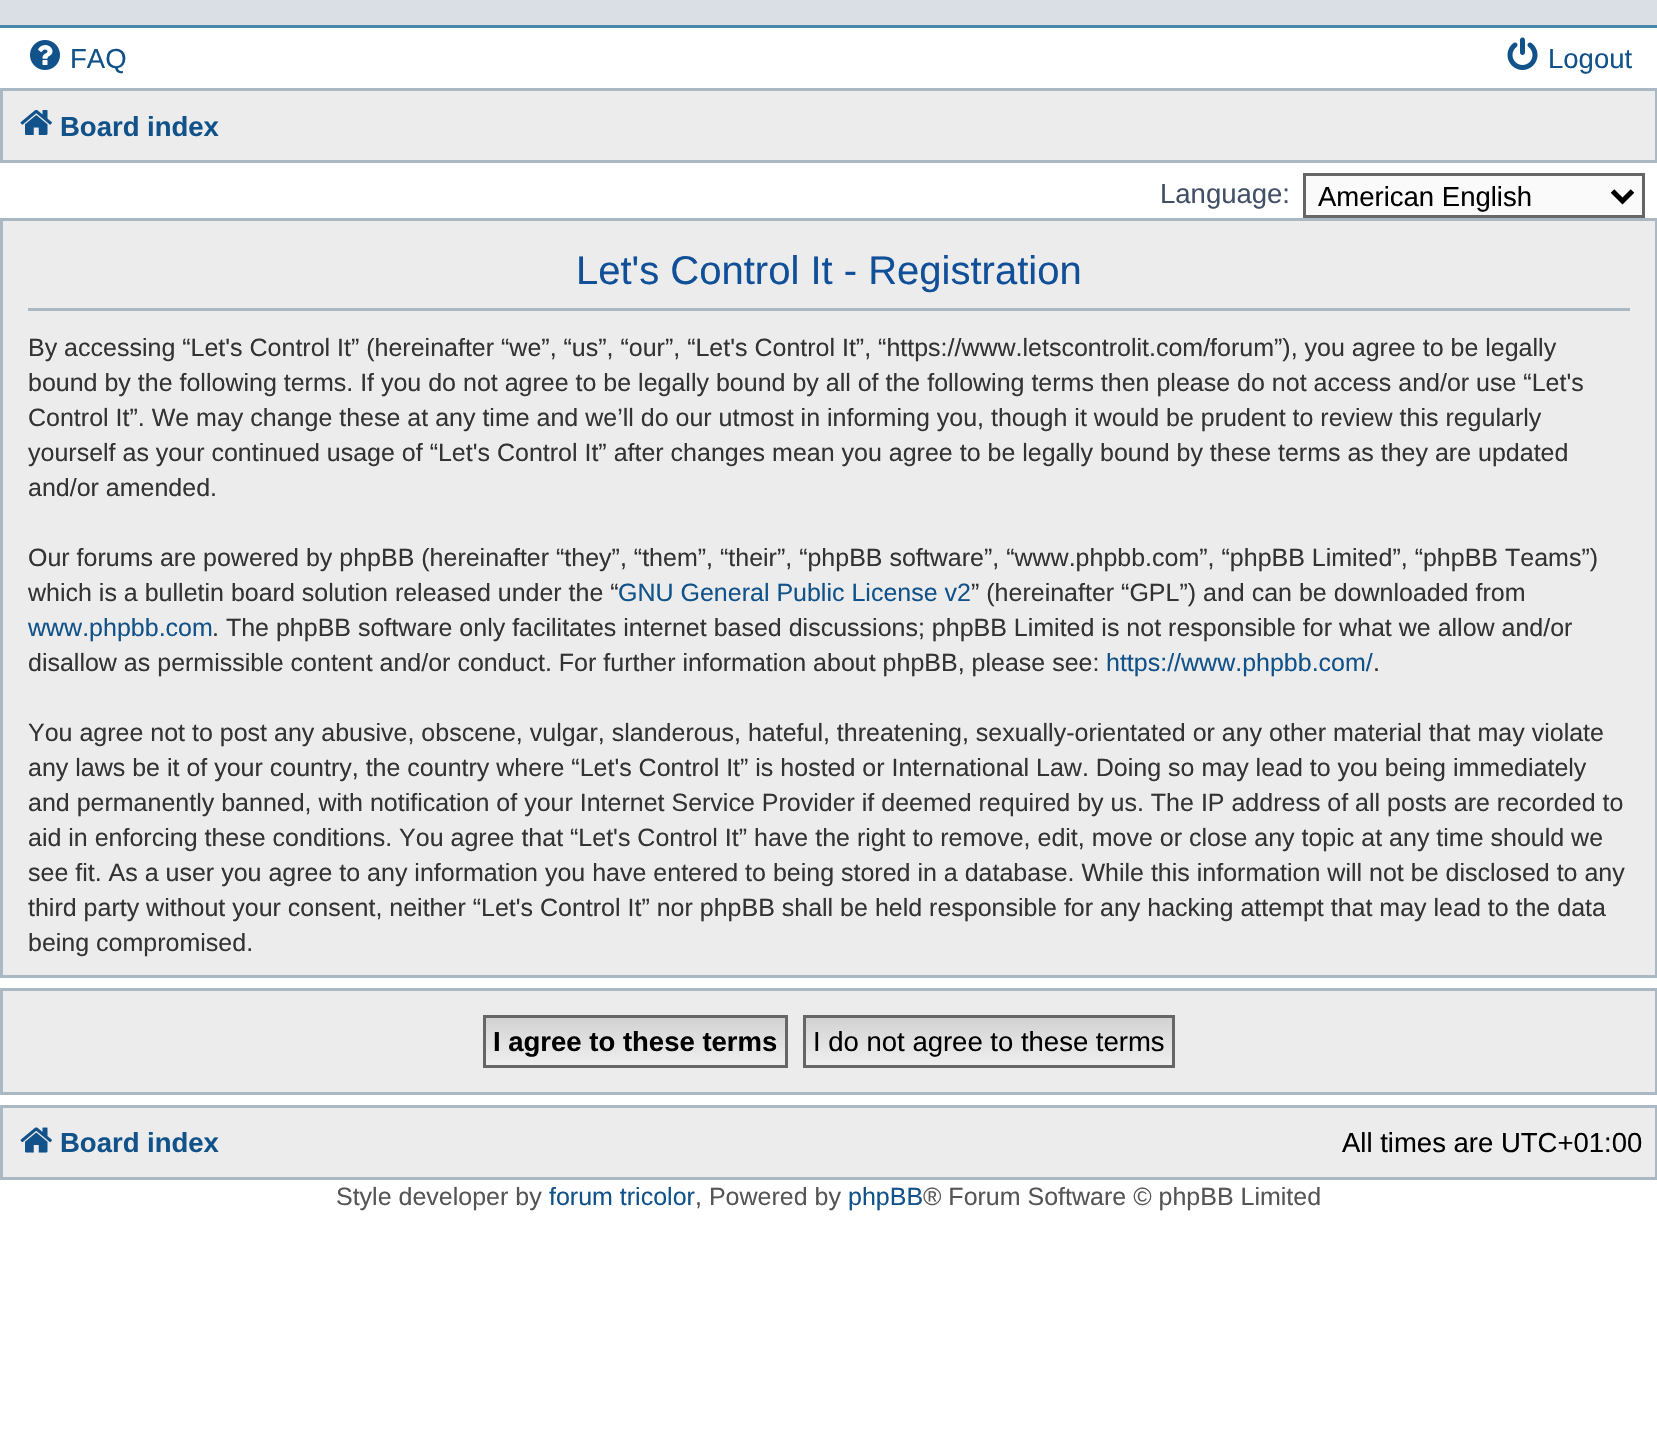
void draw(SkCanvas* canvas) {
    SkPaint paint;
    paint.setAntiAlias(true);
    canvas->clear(0xFFFFFFFF);
    paint.setColor(0xFFD9DFE4);
    canvas->drawRect(SkRect::MakeXYWH(0, 0, 1657, 25), paint);
    paint.setColor(0xFF4787A7);
    canvas->drawRect(SkRect::MakeXYWH(0, 25, 1657, 3), paint);
    canvas->drawImageRect(SkImages::DeferredFromEncodedData(SkData::MakeFromFileName("img1.png")), SkRect::MakeXYWH(30, 40, 30, 30), SkSamplingOptions());
    SkFont font1(fontMgr->matchFamilyStyle("Liberation Sans", SkFontStyle::Normal()), 27.5f);
    font1.setSubpixel(true);
    paint.setColor(0xFF105289);
    canvas->drawString("FAQ", 70, 68, font1, paint);
    canvas->drawImageRect(SkImages::DeferredFromEncodedData(SkData::MakeFromFileName("img2.png")), SkRect::MakeXYWH(1507, 37, 31, 33), SkSamplingOptions());
    canvas->drawString("Logout", 1548, 68, font1, paint);
    paint.setColor(0xFFECECEC);
    canvas->drawRect(SkRect::MakeXYWH(1.5f, 89.5f, 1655, 72), paint);
    paint.setStyle(SkPaint::kStroke_Style);
    paint.setStrokeWidth(3);
    paint.setColor(0xFFA9B8C2);
    canvas->drawRect(SkRect::MakeXYWH(1.5f, 89.5f, 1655, 72), paint);
    canvas->drawImageRect(SkImages::DeferredFromEncodedData(SkData::MakeFromFileName("img3.png")), SkRect::MakeXYWH(20, 109, 32, 26), SkSamplingOptions());
    SkFont font2(fontMgr->matchFamilyStyle("Liberation Sans", SkFontStyle::Bold()), 27.5f);
    font2.setSubpixel(true);
    paint.setStyle(SkPaint::kFill_Style);
    paint.setColor(0xFF105289);
    canvas->drawString("Board index", 60, 136, font2, paint);
    paint.setColor(0xFF425067);
    canvas->drawString("Language:", 1160, 203, font1, paint);
    paint.setColor(0xFFFAFAFA);
    canvas->drawRect(SkRect::MakeXYWH(1304.5f, 174.5f, 339, 42), paint);
    paint.setStyle(SkPaint::kStroke_Style);
    paint.setColor(0xFF666666);
    canvas->drawRect(SkRect::MakeXYWH(1304.5f, 174.5f, 339, 42), paint);
    paint.setStrokeWidth(5);
    paint.setColor(0xFF000000);
    canvas->drawPath(SkPathBuilder().moveTo(1612.5f, 191).lineTo(1622.5f, 201).lineTo(1632.5f, 191).detach(), paint);
    paint.setStyle(SkPaint::kFill_Style);
    canvas->drawString("American English", 1318, 206, font1, paint);
    paint.setColor(0xFFECECEC);
    canvas->drawRect(SkRect::MakeXYWH(1.5f, 219.5f, 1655, 757), paint);
    paint.setStyle(SkPaint::kStroke_Style);
    paint.setStrokeWidth(3);
    paint.setColor(0xFFA9B8C2);
    canvas->drawRect(SkRect::MakeXYWH(1.5f, 219.5f, 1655, 757), paint);
    paint.setStyle(SkPaint::kFill_Style);
    canvas->drawRect(SkRect::MakeXYWH(28, 308, 1602, 3), paint);
    SkFont font3(fontMgr->matchFamilyStyle("Liberation Sans", SkFontStyle::Normal()), 40);
    font3.setSubpixel(true);
    paint.setColor(0xFF115098);
    canvas->drawString("Let's Control It - Registration", 576, 284, font3, paint);
    SkFont font4(fontMgr->matchFamilyStyle("Liberation Sans", SkFontStyle::Normal()), 25);
    font4.setSubpixel(true);
    paint.setColor(0xFF333333);
    canvas->drawString("By accessing “Let's Control It” (hereinafter “we”, “us”, “our”, “Let's Control It”, “https://www.letscontrolit.com/forum”), you agree to be legally", 28, 356, font4, paint);
    canvas->drawString("bound by the following terms. If you do not agree to be legally bound by all of the following terms then please do not access and/or use “Let's", 28, 391, font4, paint);
    canvas->drawString("Control It”. We may change these at any time and we’ll do our utmost in informing you, though it would be prudent to review this regularly", 28, 426, font4, paint);
    canvas->drawString("yourself as your continued usage of “Let's Control It” after changes mean you agree to be legally bound by these terms as they are updated", 28, 461, font4, paint);
    canvas->drawString("and/or amended.", 28, 496, font4, paint);
    canvas->drawString("Our forums are powered by phpBB (hereinafter “they”, “them”, “their”, “phpBB software”, “www.phpbb.com”, “phpBB Limited”, “phpBB Teams”)", 28, 566, font4, paint);
    canvas->save();
    canvas->clipRect(SkRect::MakeXYWH(28, 233, 1602, 730));
    canvas->drawString("which is a bulletin board solution released under the “", 28, 601, font4, paint);
    canvas->restore();
    paint.setColor(0xFF105289);
    canvas->drawString("GNU General Public License v2", 618, 601, font4, paint);
    paint.setColor(0xFF333333);
    canvas->drawString("” (hereinafter “GPL”) and can be downloaded from", 971, 601, font4, paint);
    canvas->save();
    canvas->clipRect(SkRect::MakeXYWH(28, 233, 1602, 730));
    paint.setColor(0xFF105289);
    canvas->drawString("www.phpbb.com", 28, 636, font4, paint);
    canvas->restore();
    paint.setColor(0xFF333333);
    canvas->drawString(". The phpBB software only facilitates internet based discussions; phpBB Limited is not responsible for what we allow and/or", 212, 636, font4, paint);
    canvas->drawString("disallow as permissible content and/or conduct. For further information about phpBB, please see:", 28, 671, font4, paint);
    paint.setColor(0xFF105289);
    canvas->drawString("https://www.phpbb.com/", 1106, 671, font4, paint);
    paint.setColor(0xFF333333);
    canvas->drawString(".", 1373, 671, font4, paint);
    canvas->drawString("You agree not to post any abusive, obscene, vulgar, slanderous, hateful, threatening, sexually-orientated or any other material that may violate", 28, 741, font4, paint);
    canvas->drawString("any laws be it of your country, the country where “Let's Control It” is hosted or International Law. Doing so may lead to you being immediately", 28, 776, font4, paint);
    canvas->drawString("and permanently banned, with notification of your Internet Service Provider if deemed required by us. The IP address of all posts are recorded to", 28, 811, font4, paint);
    canvas->drawString("aid in enforcing these conditions. You agree that “Let's Control It” have the right to remove, edit, move or close any topic at any time should we", 28, 846, font4, paint);
    canvas->drawString("see fit. As a user you agree to any information you have entered to being stored in a database. While this information will not be disclosed to any", 28, 881, font4, paint);
    canvas->drawString("third party without your consent, neither “Let's Control It” nor phpBB shall be held responsible for any hacking attempt that may lead to the data", 28, 916, font4, paint);
    canvas->drawString("being compromised.", 28, 951, font4, paint);
    paint.setColor(0xFFECECEC);
    canvas->drawRect(SkRect::MakeXYWH(1.5f, 989.5f, 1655, 104), paint);
    paint.setStyle(SkPaint::kStroke_Style);
    paint.setColor(0xFFA9B8C2);
    canvas->drawRect(SkRect::MakeXYWH(1.5f, 989.5f, 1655, 104), paint);
    paint.setStyle(SkPaint::kFill_Style);
    {
        const SkColor colors[] = {0xFFD2D2D2, 0xFFEFEFEF};
        const float stops[] = {0, 1};
        const SkPoint ends[] = {{635, 1018}, {635, 1065}};
        paint.setShader(SkGradientShader::MakeLinear(ends, colors, stops, 2, SkTileMode::kClamp));
        paint.setAlpha(255);
    }
    canvas->drawRect(SkRect::MakeXYWH(486, 1018, 299, 47), paint);
    paint.setStyle(SkPaint::kStroke_Style);
    paint.setShader(nullptr);
    paint.setColor(0xFF666666);
    canvas->drawRect(SkRect::MakeXYWH(484.5f, 1016.5f, 302, 50), paint);
    paint.setStyle(SkPaint::kFill_Style);
    paint.setColor(0xFF000000);
    canvas->drawString("I agree to these terms", 493, 1051, font2, paint);
    {
        const SkColor colors[] = {0xFFD2D2D2, 0xFFEFEFEF};
        const float stops[] = {0, 1};
        const SkPoint ends[] = {{989, 1018}, {989, 1065}};
        paint.setShader(SkGradientShader::MakeLinear(ends, colors, stops, 2, SkTileMode::kClamp));
        paint.setAlpha(255);
    }
    canvas->drawRect(SkRect::MakeXYWH(806, 1018, 366, 47), paint);
    paint.setStyle(SkPaint::kStroke_Style);
    paint.setShader(nullptr);
    paint.setColor(0xFF666666);
    canvas->drawRect(SkRect::MakeXYWH(804.5f, 1016.5f, 369, 50), paint);
    paint.setStyle(SkPaint::kFill_Style);
    paint.setColor(0xFF000000);
    canvas->drawString("I do not agree to these terms", 813, 1051, font1, paint);
    paint.setColor(0xFFECECEC);
    canvas->drawRect(SkRect::MakeXYWH(1.5f, 1106.5f, 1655, 72), paint);
    paint.setStyle(SkPaint::kStroke_Style);
    paint.setColor(0xFFA9B8C2);
    canvas->drawRect(SkRect::MakeXYWH(1.5f, 1106.5f, 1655, 72), paint);
    canvas->drawImageRect(SkImages::DeferredFromEncodedData(SkData::MakeFromFileName("img4.png")), SkRect::MakeXYWH(20, 1127, 32, 26), SkSamplingOptions());
    paint.setStyle(SkPaint::kFill_Style);
    paint.setColor(0xFF105289);
    canvas->drawString("Board index", 60, 1152, font2, paint);
    paint.setColor(0xFF000000);
    canvas->drawString("All times are UTC+01:00", 1342, 1152, font1, paint);
    paint.setColor(0xFF555555);
    canvas->drawString("Style developer by", 336, 1205, font4, paint);
    paint.setColor(0xFF105289);
    canvas->drawString("forum tricolor", 549, 1205, font4, paint);
    paint.setColor(0xFF555555);
    canvas->drawString(", Powered by", 695, 1205, font4, paint);
    paint.setColor(0xFF105289);
    canvas->drawString("phpBB", 848, 1205, font4, paint);
    paint.setColor(0xFF555555);
    canvas->drawString("® Forum Software © phpBB Limited", 923, 1205, font4, paint);
}
